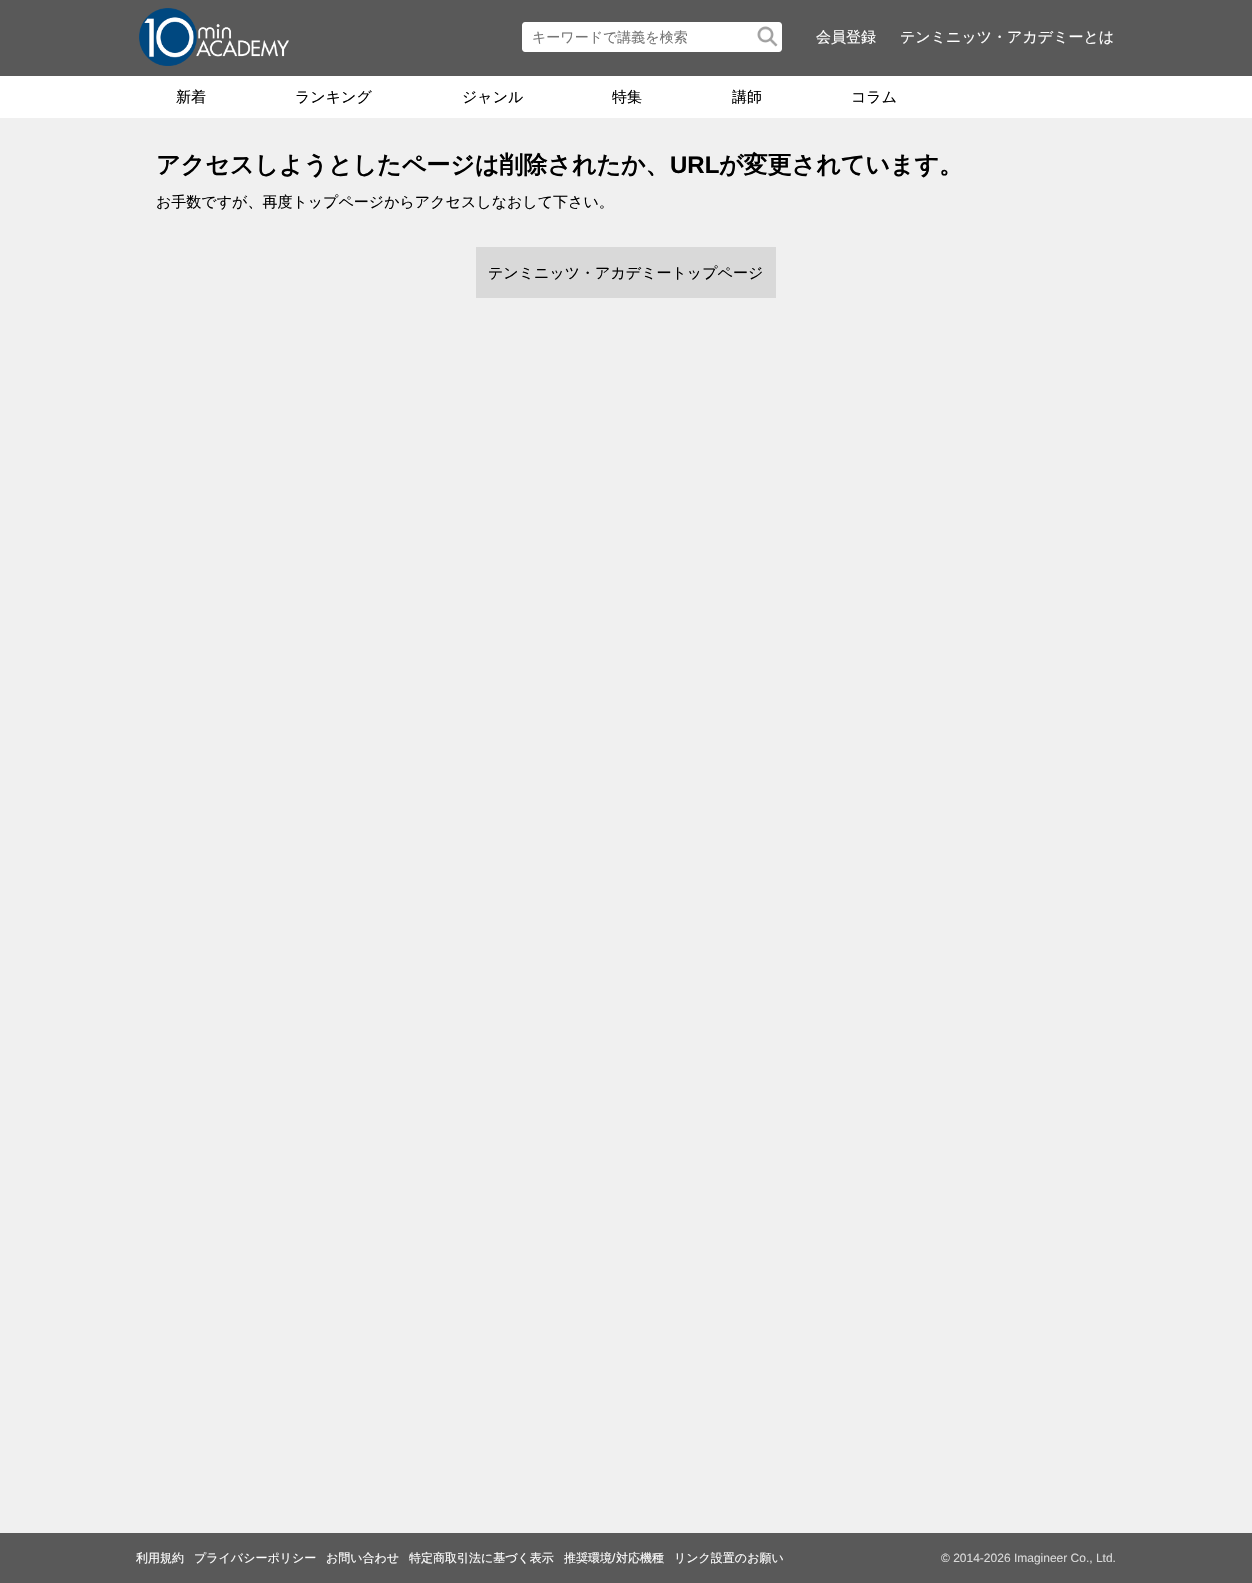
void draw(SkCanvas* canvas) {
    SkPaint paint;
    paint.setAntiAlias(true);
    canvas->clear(0xFFF0F0F0);
    paint.setColor(0xFF595959);
    canvas->drawRect(SkRect::MakeXYWH(0, 0, 1252, 76), paint);
    canvas->drawImageRect(SkImages::DeferredFromEncodedData(SkData::MakeFromFileName("img1.png")), SkRect::MakeXYWH(139, 8, 150, 58), SkSamplingOptions());
    paint.setColor(0xFFFFFFFF);
    canvas->drawPath(SkPathBuilder().moveTo(525, 22).lineTo(752, 22).lineTo(752, 52).lineTo(525, 52).cubicTo(523.5f, 52, 522, 50.5f, 522, 49).lineTo(522, 25).cubicTo(522, 23.5f, 523.5f, 22, 525, 22).close().detach(), paint);
    SkFont font1(fontMgr->matchFamilyStyle("WenQuanYi Zen Hei", SkFontStyle(500, SkFontStyle::kNormal_Width, SkFontStyle::kUpright_Slant)), 14);
    font1.setSubpixel(true);
    paint.setColor(0xFF757575);
    canvas->drawString("キーワードで講義を検索", 532, 42, font1, paint);
    paint.setColor(0xFFFFFFFF);
    canvas->drawPath(SkPathBuilder().moveTo(752, 22).lineTo(779, 22).cubicTo(780.5f, 22, 782, 23.5f, 782, 25).lineTo(782, 49).cubicTo(782, 50.5f, 780.5f, 52, 779, 52).lineTo(752, 52).close().detach(), paint);
    canvas->drawImageRect(SkImages::DeferredFromEncodedData(SkData::MakeFromFileName("img2.png")), SkRect::MakeXYWH(757, 26, 21, 21), SkSamplingOptions());
    SkFont font2(fontMgr->matchFamilyStyle("WenQuanYi Zen Hei", SkFontStyle(500, SkFontStyle::kNormal_Width, SkFontStyle::kUpright_Slant)), 15);
    font2.setSubpixel(true);
    canvas->drawString("会員登録", 816, 42, font2, paint);
    canvas->drawString("テンミニッツ・アカデミーとは", 900, 42, font2, paint);
    canvas->drawRect(SkRect::MakeXYWH(0, 76, 1252, 42), paint);
    paint.setColor(0xFF000000);
    canvas->drawString("新着", 176, 102, font2, paint);
    canvas->drawString("ランキング", 295, 102, font2, paint);
    canvas->drawString("ジャンル", 462, 102, font2, paint);
    canvas->drawString("特集", 612, 102, font2, paint);
    canvas->drawString("講師", 732, 102, font2, paint);
    canvas->drawString("コラム", 851, 102, font2, paint);
    SkFont font3(fontMgr->matchFamilyStyle("WenQuanYi Zen Hei", SkFontStyle::Bold()), 24);
    font3.setSubpixel(true);
    canvas->drawString("アクセスしようとしたページは削除されたか、", 156, 173, font3, paint);
    SkFont font4(fontMgr->matchFamilyStyle("Liberation Sans", SkFontStyle::Bold()), 24);
    font4.setSubpixel(true);
    canvas->drawString("URL", 670, 173, font4, paint);
    canvas->drawString("が変更されています。", 719, 173, font3, paint);
    canvas->drawString("お手数ですが、再度トップページからアクセスしなおして下さい。", 156, 207, font2, paint);
    paint.setColor(0xFFD9D9D9);
    canvas->drawRect(SkRect::MakeXYWH(476, 247, 300, 51), paint);
    paint.setColor(0xFF000000);
    canvas->drawString("テンミニッツ・アカデミートップページ", 488, 278, font2, paint);
    paint.setColor(0xFF595959);
    canvas->drawRect(SkRect::MakeXYWH(0, 1533, 1252, 50), paint);
    SkFont font5(fontMgr->matchFamilyStyle("WenQuanYi Zen Hei", SkFontStyle(500, SkFontStyle::kNormal_Width, SkFontStyle::kUpright_Slant)), 12);
    font5.setSubpixel(true);
    paint.setColor(0xFFFFFFFF);
    canvas->drawString("利用規約", 136, 1562, font5, paint);
    canvas->drawString("プライバシーポリシー", 194, 1562, font5, paint);
    canvas->drawString("お問い合わせ", 326, 1562, font5, paint);
    canvas->drawString("特定商取引法に基づく表示", 409, 1562, font5, paint);
    canvas->drawString("推奨環境", 564, 1562, font5, paint);
    SkFont font6(fontMgr->matchFamilyStyle("Liberation Sans", SkFontStyle::Normal()), 12);
    font6.setSubpixel(true);
    canvas->drawString("/", 612, 1562, font6, paint);
    canvas->drawString("対応機種", 616, 1562, font5, paint);
    canvas->drawString("リンク設置のお願い", 674, 1562, font5, paint);
    paint.setColor(0xFFD9D9D9);
    canvas->drawString("© 2014-2026 Imagineer Co., Ltd.", 941, 1562, font6, paint);
}
